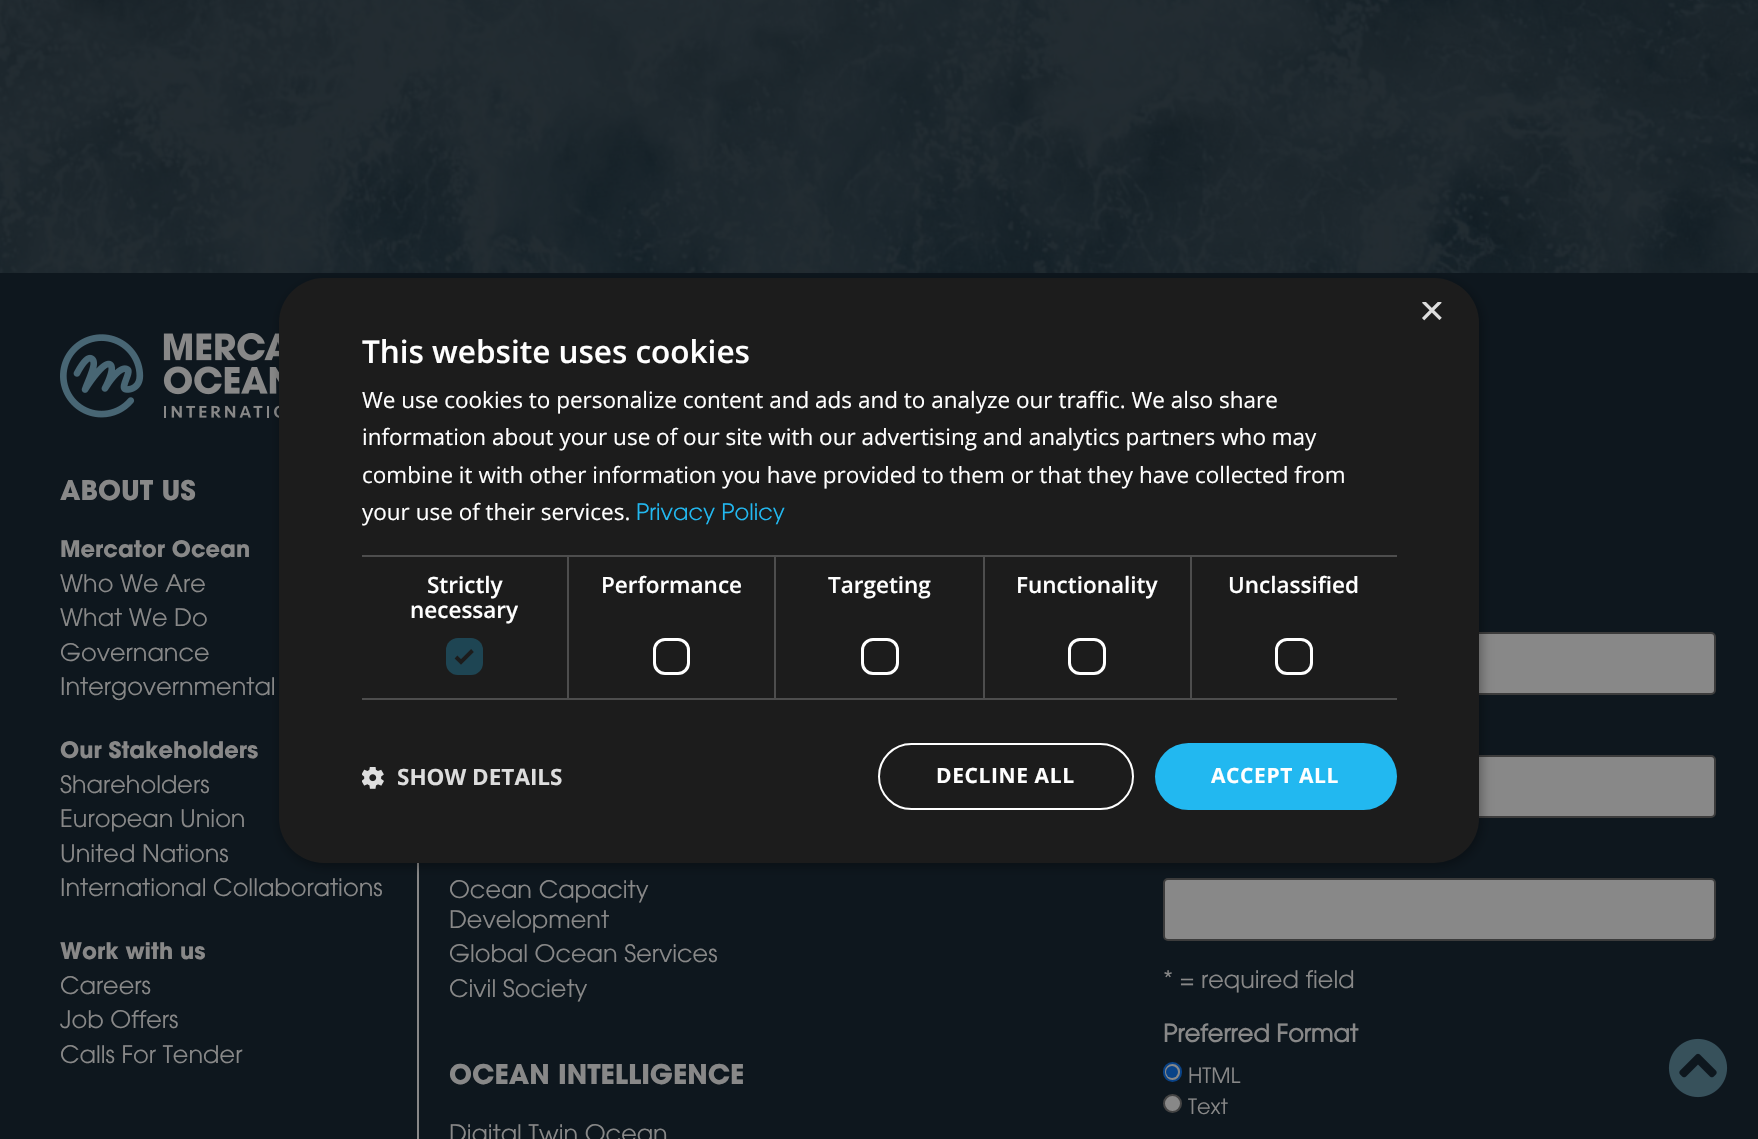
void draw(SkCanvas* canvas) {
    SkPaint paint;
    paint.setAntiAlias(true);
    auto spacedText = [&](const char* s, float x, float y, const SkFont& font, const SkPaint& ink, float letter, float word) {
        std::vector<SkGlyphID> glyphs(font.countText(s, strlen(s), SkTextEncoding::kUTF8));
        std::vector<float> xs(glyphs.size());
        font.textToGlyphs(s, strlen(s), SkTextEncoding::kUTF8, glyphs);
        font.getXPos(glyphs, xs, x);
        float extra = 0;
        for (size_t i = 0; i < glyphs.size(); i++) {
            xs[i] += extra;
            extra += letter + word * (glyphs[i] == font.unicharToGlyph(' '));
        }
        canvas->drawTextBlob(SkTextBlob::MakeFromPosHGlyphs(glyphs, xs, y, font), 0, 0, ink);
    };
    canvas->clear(0xFFFFFFFF);
    canvas->drawImageRect(SkImages::DeferredFromEncodedData(SkData::MakeFromFileName("img1.png")), SkRect::MakeXYWH(0, 0, 1758, 273), SkSamplingOptions());
    paint.setColor(0xFF0E171E);
    canvas->drawRect(SkRect::MakeXYWH(0, 273, 1758, 866), paint);
    canvas->drawImageRect(SkImages::DeferredFromEncodedData(SkData::MakeFromFileName("img3.png")), SkRect::MakeXYWH(60, 333, 219, 85), SkSamplingOptions());
    paint.setColor(0xFF888888);
    canvas->drawRect(SkRect::MakeXYWH(417, 863, 2, 276), paint);
    canvas->drawRoundRect(SkRect::MakeXYWH(1164, 633, 551, 61), 4, 4, paint);
    paint.setStyle(SkPaint::kStroke_Style);
    paint.setStrokeWidth(2);
    paint.setColor(0xFF3C3C3C);
    canvas->drawRoundRect(SkRect::MakeXYWH(1164, 633, 551, 61), 4, 4, paint);
    paint.setStyle(SkPaint::kFill_Style);
    paint.setColor(0xFF888888);
    canvas->drawRoundRect(SkRect::MakeXYWH(1164, 756, 551, 61), 4, 4, paint);
    paint.setStyle(SkPaint::kStroke_Style);
    paint.setColor(0xFF3C3C3C);
    canvas->drawRoundRect(SkRect::MakeXYWH(1164, 756, 551, 61), 4, 4, paint);
    paint.setStyle(SkPaint::kFill_Style);
    paint.setColor(0xFF888888);
    canvas->drawRoundRect(SkRect::MakeXYWH(1164, 879, 551, 61), 4, 4, paint);
    paint.setStyle(SkPaint::kStroke_Style);
    paint.setColor(0xFF3C3C3C);
    canvas->drawRoundRect(SkRect::MakeXYWH(1164, 879, 551, 61), 4, 4, paint);
    paint.setStyle(SkPaint::kFill_Style);
    paint.setColor(0x59000000);
    paint.setMaskFilter(SkMaskFilter::MakeBlur(kNormal_SkBlurStyle, 6));
    canvas->drawRoundRect(SkRect::MakeXYWH(281, 281, 1200, 585), 45, 45, paint);
    paint.setMaskFilter(nullptr);
    paint.setColor(0xFF1C1C1C);
    canvas->drawRoundRect(SkRect::MakeXYWH(279, 278, 1200, 585), 45, 45, paint);
    canvas->save();
    canvas->clipRect(SkRect::MakeXYWH(1419, 302, 23, 22));
    SkFont font1(fontMgr->matchFamilyStyle("Liberation Sans", SkFontStyle::Normal()), 44);
    font1.setSubpixel(true);
    paint.setColor(0xFFDDDDDD);
    canvas->drawString("×", 1419, 325, font1, paint);
    canvas->restore();
    SkFont font2(fontMgr->matchFamilyStyle("Open Sans", SkFontStyle(600, SkFontStyle::kNormal_Width, SkFontStyle::kUpright_Slant)), 31.5f);
    font2.setSubpixel(true);
    paint.setColor(0xFFFFFFFF);
    canvas->drawString("This website uses cookies", 362, 363, font2, paint);
    SkFont font3(fontMgr->matchFamilyStyle("Open Sans", SkFontStyle::Normal()), 22.5f);
    font3.setSubpixel(true);
    canvas->drawString("We use cookies to personalize content and ads and to analyze our traffic. We also share", 362, 408, font3, paint);
    canvas->drawString("information about your use of our site with our advertising and analytics partners who may", 362, 445, font3, paint);
    canvas->drawString("combine it with other information you have provided to them or that they have collected from", 362, 483, font3, paint);
    canvas->drawString("your use of their services.", 362, 520, font3, paint);
    SkFont font4(fontMgr->matchFamilyStyle("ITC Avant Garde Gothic", SkFontStyle::Normal()), 22.5f);
    font4.setSubpixel(true);
    paint.setColor(0xFF22B8F0);
    canvas->drawString("Privacy Policy", 636, 520, font4, paint);
    paint.setColor(0xFF4D4D4D);
    canvas->drawRect(SkRect::MakeXYWH(362, 555, 622, 2), paint);
    canvas->drawRect(SkRect::MakeXYWH(567, 555, 2, 144), paint);
    canvas->drawRect(SkRect::MakeXYWH(362, 698, 207, 2), paint);
    SkFont font5(fontMgr->matchFamilyStyle("Open Sans", SkFontStyle(600, SkFontStyle::kNormal_Width, SkFontStyle::kUpright_Slant)), 22.5f);
    font5.setSubpixel(true);
    paint.setColor(0xFFFFFFFF);
    canvas->drawString("Strictly", 427, 593, font5, paint);
    canvas->drawString("necessary", 410, 618, font5, paint);
    paint.setColor(0xFF1E4553);
    canvas->drawRoundRect(SkRect::MakeXYWH(446, 638, 37, 37), 12, 12, paint);
    paint.setStyle(SkPaint::kStroke_Style);
    paint.setStrokeWidth(3.9f);
    paint.setColor(0xFF1C1C1C);
    canvas->drawPath(SkPathBuilder().moveTo(456, 657).lineTo(461, 662).lineTo(472.5f, 650.5f).detach(), paint);
    paint.setStyle(SkPaint::kFill_Style);
    paint.setColor(0xFF4D4D4D);
    canvas->drawRect(SkRect::MakeXYWH(774, 555, 2, 144), paint);
    canvas->drawRect(SkRect::MakeXYWH(569, 698, 207, 2), paint);
    paint.setColor(0xFFFFFFFF);
    canvas->drawString("Performance", 601, 593, font5, paint);
    paint.setStyle(SkPaint::kStroke_Style);
    paint.setStrokeWidth(3);
    canvas->drawRoundRect(SkRect::MakeXYWH(654.5f, 639.5f, 34, 34), 10.5f, 10.5f, paint);
    paint.setStyle(SkPaint::kFill_Style);
    paint.setColor(0xFF4D4D4D);
    canvas->drawRect(SkRect::MakeXYWH(983, 555, 2, 144), paint);
    canvas->drawRect(SkRect::MakeXYWH(776, 698, 208, 2), paint);
    paint.setColor(0xFFFFFFFF);
    canvas->drawString("Targeting", 828, 593, font5, paint);
    paint.setStyle(SkPaint::kStroke_Style);
    canvas->drawRoundRect(SkRect::MakeXYWH(862.5f, 639.5f, 35, 34), 10.5f, 10.5f, paint);
    paint.setStyle(SkPaint::kFill_Style);
    paint.setColor(0xFF4D4D4D);
    canvas->drawRect(SkRect::MakeXYWH(984, 555, 207, 2), paint);
    canvas->drawRect(SkRect::MakeXYWH(1190, 555, 2, 144), paint);
    canvas->drawRect(SkRect::MakeXYWH(984, 698, 413, 2), paint);
    paint.setColor(0xFFFFFFFF);
    canvas->drawString("Functionality", 1016, 593, font5, paint);
    paint.setStyle(SkPaint::kStroke_Style);
    canvas->drawRoundRect(SkRect::MakeXYWH(1069.5f, 639.5f, 35, 34), 10.5f, 10.5f, paint);
    paint.setStyle(SkPaint::kFill_Style);
    paint.setColor(0xFF4D4D4D);
    canvas->drawRect(SkRect::MakeXYWH(1191, 555, 206, 2), paint);
    paint.setColor(0xFFFFFFFF);
    canvas->drawString("Unclassified", 1228, 593, font5, paint);
    paint.setStyle(SkPaint::kStroke_Style);
    canvas->drawRoundRect(SkRect::MakeXYWH(1276.5f, 639.5f, 35, 34), 10.5f, 10.5f, paint);
    canvas->drawImageRect(SkImages::DeferredFromEncodedData(SkData::MakeFromFileName("img2.png")), SkRect::MakeXYWH(362, 767, 22, 22), SkSamplingOptions());
    SkFont font6(fontMgr->matchFamilyStyle("Open Sans", SkFontStyle::Bold()), 22.5f);
    font6.setSubpixel(true);
    paint.setStyle(SkPaint::kFill_Style);
    paint.setColor(0xFFDDDDDD);
    canvas->drawString("SHOW DETAILS", 397, 785, font6, paint);
    paint.setStyle(SkPaint::kStroke_Style);
    paint.setStrokeWidth(2);
    paint.setColor(0xFFFFFFFF);
    canvas->drawRoundRect(SkRect::MakeXYWH(879, 744, 254, 65), 32.5f, 32.5f, paint);
    SkFont font7(fontMgr->matchFamilyStyle("Open Sans", SkFontStyle::Bold()), 21);
    font7.setSubpixel(true);
    paint.setStyle(SkPaint::kFill_Style);
    spacedText("DECLINE ALL", 936, 783, font7, paint, 0.6f, 0);
    paint.setColor(0xFF22B8F0);
    canvas->drawRoundRect(SkRect::MakeXYWH(1155, 743, 242, 67), 33.5f, 33.5f, paint);
    paint.setColor(0xFFFFFFFF);
    spacedText("ACCEPT ALL", 1211, 783, font7, paint, 0.6f, 0);
    SkFont font8(fontMgr->matchFamilyStyle("ITC Avant Garde Gothic", SkFontStyle::Bold()), 27);
    font8.setSubpixel(true);
    paint.setColor(0xFF888888);
    canvas->drawString("ABOUT US", 60, 500, font8, paint);
    SkFont font9(fontMgr->matchFamilyStyle("ITC Avant Garde Gothic", SkFontStyle::Bold()), 22.5f);
    font9.setSubpixel(true);
    canvas->drawString("Mercator Ocean", 60, 557, font9, paint);
    SkFont font10(fontMgr->matchFamilyStyle("ITC Avant Garde Gothic", SkFontStyle::Normal()), 24);
    font10.setSubpixel(true);
    canvas->drawString("Who We Are", 60, 592, font10, paint);
    canvas->drawString("What We Do", 60, 626, font10, paint);
    canvas->drawString("Governance", 60, 661, font10, paint);
    canvas->drawString("Intergovernmental", 60, 695, font10, paint);
    canvas->drawString("Our Stakeholders", 60, 758, font9, paint);
    canvas->drawString("Shareholders", 60, 793, font10, paint);
    canvas->drawString("European Union", 60, 827, font10, paint);
    canvas->drawString("United Nations", 60, 862, font10, paint);
    canvas->drawString("International Collaborations", 60, 896, font10, paint);
    canvas->drawString("Work with us", 60, 959, font9, paint);
    canvas->drawString("Careers", 60, 994, font10, paint);
    canvas->drawString("Job Offers", 60, 1028, font10, paint);
    canvas->drawString("Calls For Tender", 60, 1063, font10, paint);
    canvas->drawString("Ocean Capacity", 449, 898, font10, paint);
    canvas->drawString("Development", 449, 928, font10, paint);
    canvas->drawString("Global Ocean Services", 449, 962, font10, paint);
    canvas->drawString("Civil Society", 449, 997, font10, paint);
    canvas->drawString("OCEAN INTELLIGENCE", 449, 1084, font8, paint);
    canvas->drawString("Digital Twin Ocean", 449, 1142, font10, paint);
    canvas->drawString("* = required field", 1163, 988, font10, paint);
    SkFont font11(fontMgr->matchFamilyStyle("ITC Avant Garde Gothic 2", SkFontStyle::Bold()), 24);
    font11.setSubpixel(true);
    canvas->drawString("Preferred Format", 1163, 1042, font11, paint);
    canvas->drawRoundRect(SkRect::MakeXYWH(1164, 1063, 17, 18), 8.5f, 8.5f, paint);
    paint.setStyle(SkPaint::kStroke_Style);
    paint.setColor(0xFF094388);
    canvas->drawRoundRect(SkRect::MakeXYWH(1164, 1063, 17, 18), 8.5f, 8.5f, paint);
    paint.setStyle(SkPaint::kFill_Style);
    canvas->drawCircle(1172, 1072, 6, paint);
    SkFont font12(fontMgr->matchFamilyStyle("ITC Avant Garde Gothic", SkFontStyle::Normal()), 21);
    font12.setSubpixel(true);
    paint.setColor(0xFF888888);
    canvas->drawString("HTML", 1188, 1083, font12, paint);
    canvas->drawCircle(1172.5f, 1103.5f, 8.5f, paint);
    paint.setStyle(SkPaint::kStroke_Style);
    paint.setColor(0xFF444444);
    canvas->drawCircle(1172.5f, 1103.5f, 8.5f, paint);
    paint.setStyle(SkPaint::kFill_Style);
    paint.setColor(0xFF888888);
    canvas->drawString("Text", 1188, 1114, font12, paint);
    canvas->drawImageRect(SkImages::DeferredFromEncodedData(SkData::MakeFromFileName("img4.png")), SkRect::MakeXYWH(1668, 1038, 60, 60), SkSamplingOptions());
}
